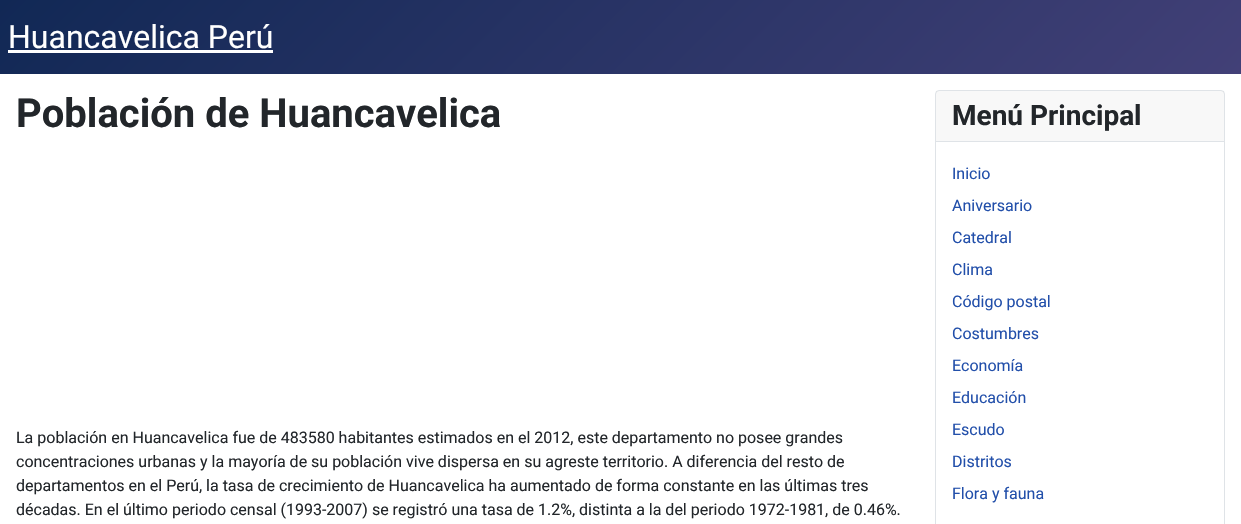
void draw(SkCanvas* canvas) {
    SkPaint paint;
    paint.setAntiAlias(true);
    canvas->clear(0xFFFFFFFF);
    {
        const SkColor colors[] = {0xFF112855, 0xFF424077};
        const float stops[] = {0, 1};
        const SkPoint ends[] = {{292, -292}, {949, 366}};
        paint.setShader(SkGradientShader::MakeLinear(ends, colors, stops, 2, SkTileMode::kClamp));
        paint.setAlpha(255);
    }
    canvas->drawRect(SkRect::MakeXYWH(0, 0, 1241, 74), paint);
    SkFont font1(fontMgr->matchFamilyStyle("Roboto", SkFontStyle::Normal()), 32);
    font1.setSubpixel(true);
    paint.setShader(nullptr);
    paint.setColor(0xFFFFFFFF);
    canvas->drawString("Huancavelica Perú", 8, 48, font1, paint);
    canvas->drawRect(SkRect::MakeXYWH(8, 50, 265, 3), paint);
    SkFont font2(fontMgr->matchFamilyStyle("Roboto", SkFontStyle::Bold()), 40);
    font2.setSubpixel(true);
    paint.setColor(0xFF22262A);
    canvas->drawString("Población de Huancavelica", 16, 127, font2, paint);
    SkFont font3(fontMgr->matchFamilyStyle("Roboto", SkFontStyle::Normal()), 16);
    font3.setSubpixel(true);
    canvas->drawString("La población en Huancavelica fue de 483580 habitantes estimados en el 2012, este departamento no posee grandes", 16, 443, font3, paint);
    canvas->drawString("concentraciones urbanas y la mayoría de su población vive dispersa en su agreste territorio. A diferencia del resto de", 16, 467, font3, paint);
    canvas->drawString("departamentos en el Perú, la tasa de crecimiento de Huancavelica ha aumentado de forma constante en las últimas tres", 16, 491, font3, paint);
    canvas->drawString("décadas. En el último periodo censal (1993-2007) se registró una tasa de 1.2%, distinta a la del periodo 1972-1981, de 0.46%.", 16, 515, font3, paint);
    paint.setStyle(SkPaint::kStroke_Style);
    paint.setStrokeWidth(1);
    paint.setColor(0xFFDFE3E7);
    canvas->drawRoundRect(SkRect::MakeXYWH(935.5f, 90.5f, 289, 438), 3.5f, 3.5f, paint);
    paint.setStyle(SkPaint::kFill_Style);
    paint.setColor(0x0822262A);
    canvas->drawRect(SkRect::MakeXYWH(936, 91, 288, 50), paint);
    paint.setColor(0xFFDFE3E7);
    canvas->drawRect(SkRect::MakeXYWH(936, 141, 288, 1), paint);
    SkFont font4(fontMgr->matchFamilyStyle("Roboto", SkFontStyle::Bold()), 28);
    font4.setSubpixel(true);
    paint.setColor(0xFF22262A);
    canvas->drawString("Menú Principal", 952, 125, font4, paint);
    paint.setColor(0xFF224FAA);
    canvas->drawString("Inicio", 952, 179, font3, paint);
    canvas->drawString("Aniversario", 952, 211, font3, paint);
    canvas->drawString("Catedral", 952, 243, font3, paint);
    canvas->drawString("Clima", 952, 275, font3, paint);
    canvas->drawString("Código postal", 952, 307, font3, paint);
    canvas->drawString("Costumbres", 952, 339, font3, paint);
    canvas->drawString("Economía", 952, 371, font3, paint);
    canvas->drawString("Educación", 952, 403, font3, paint);
    canvas->drawString("Escudo", 952, 435, font3, paint);
    canvas->drawString("Distritos", 952, 467, font3, paint);
    canvas->drawString("Flora y fauna", 952, 499, font3, paint);
}
